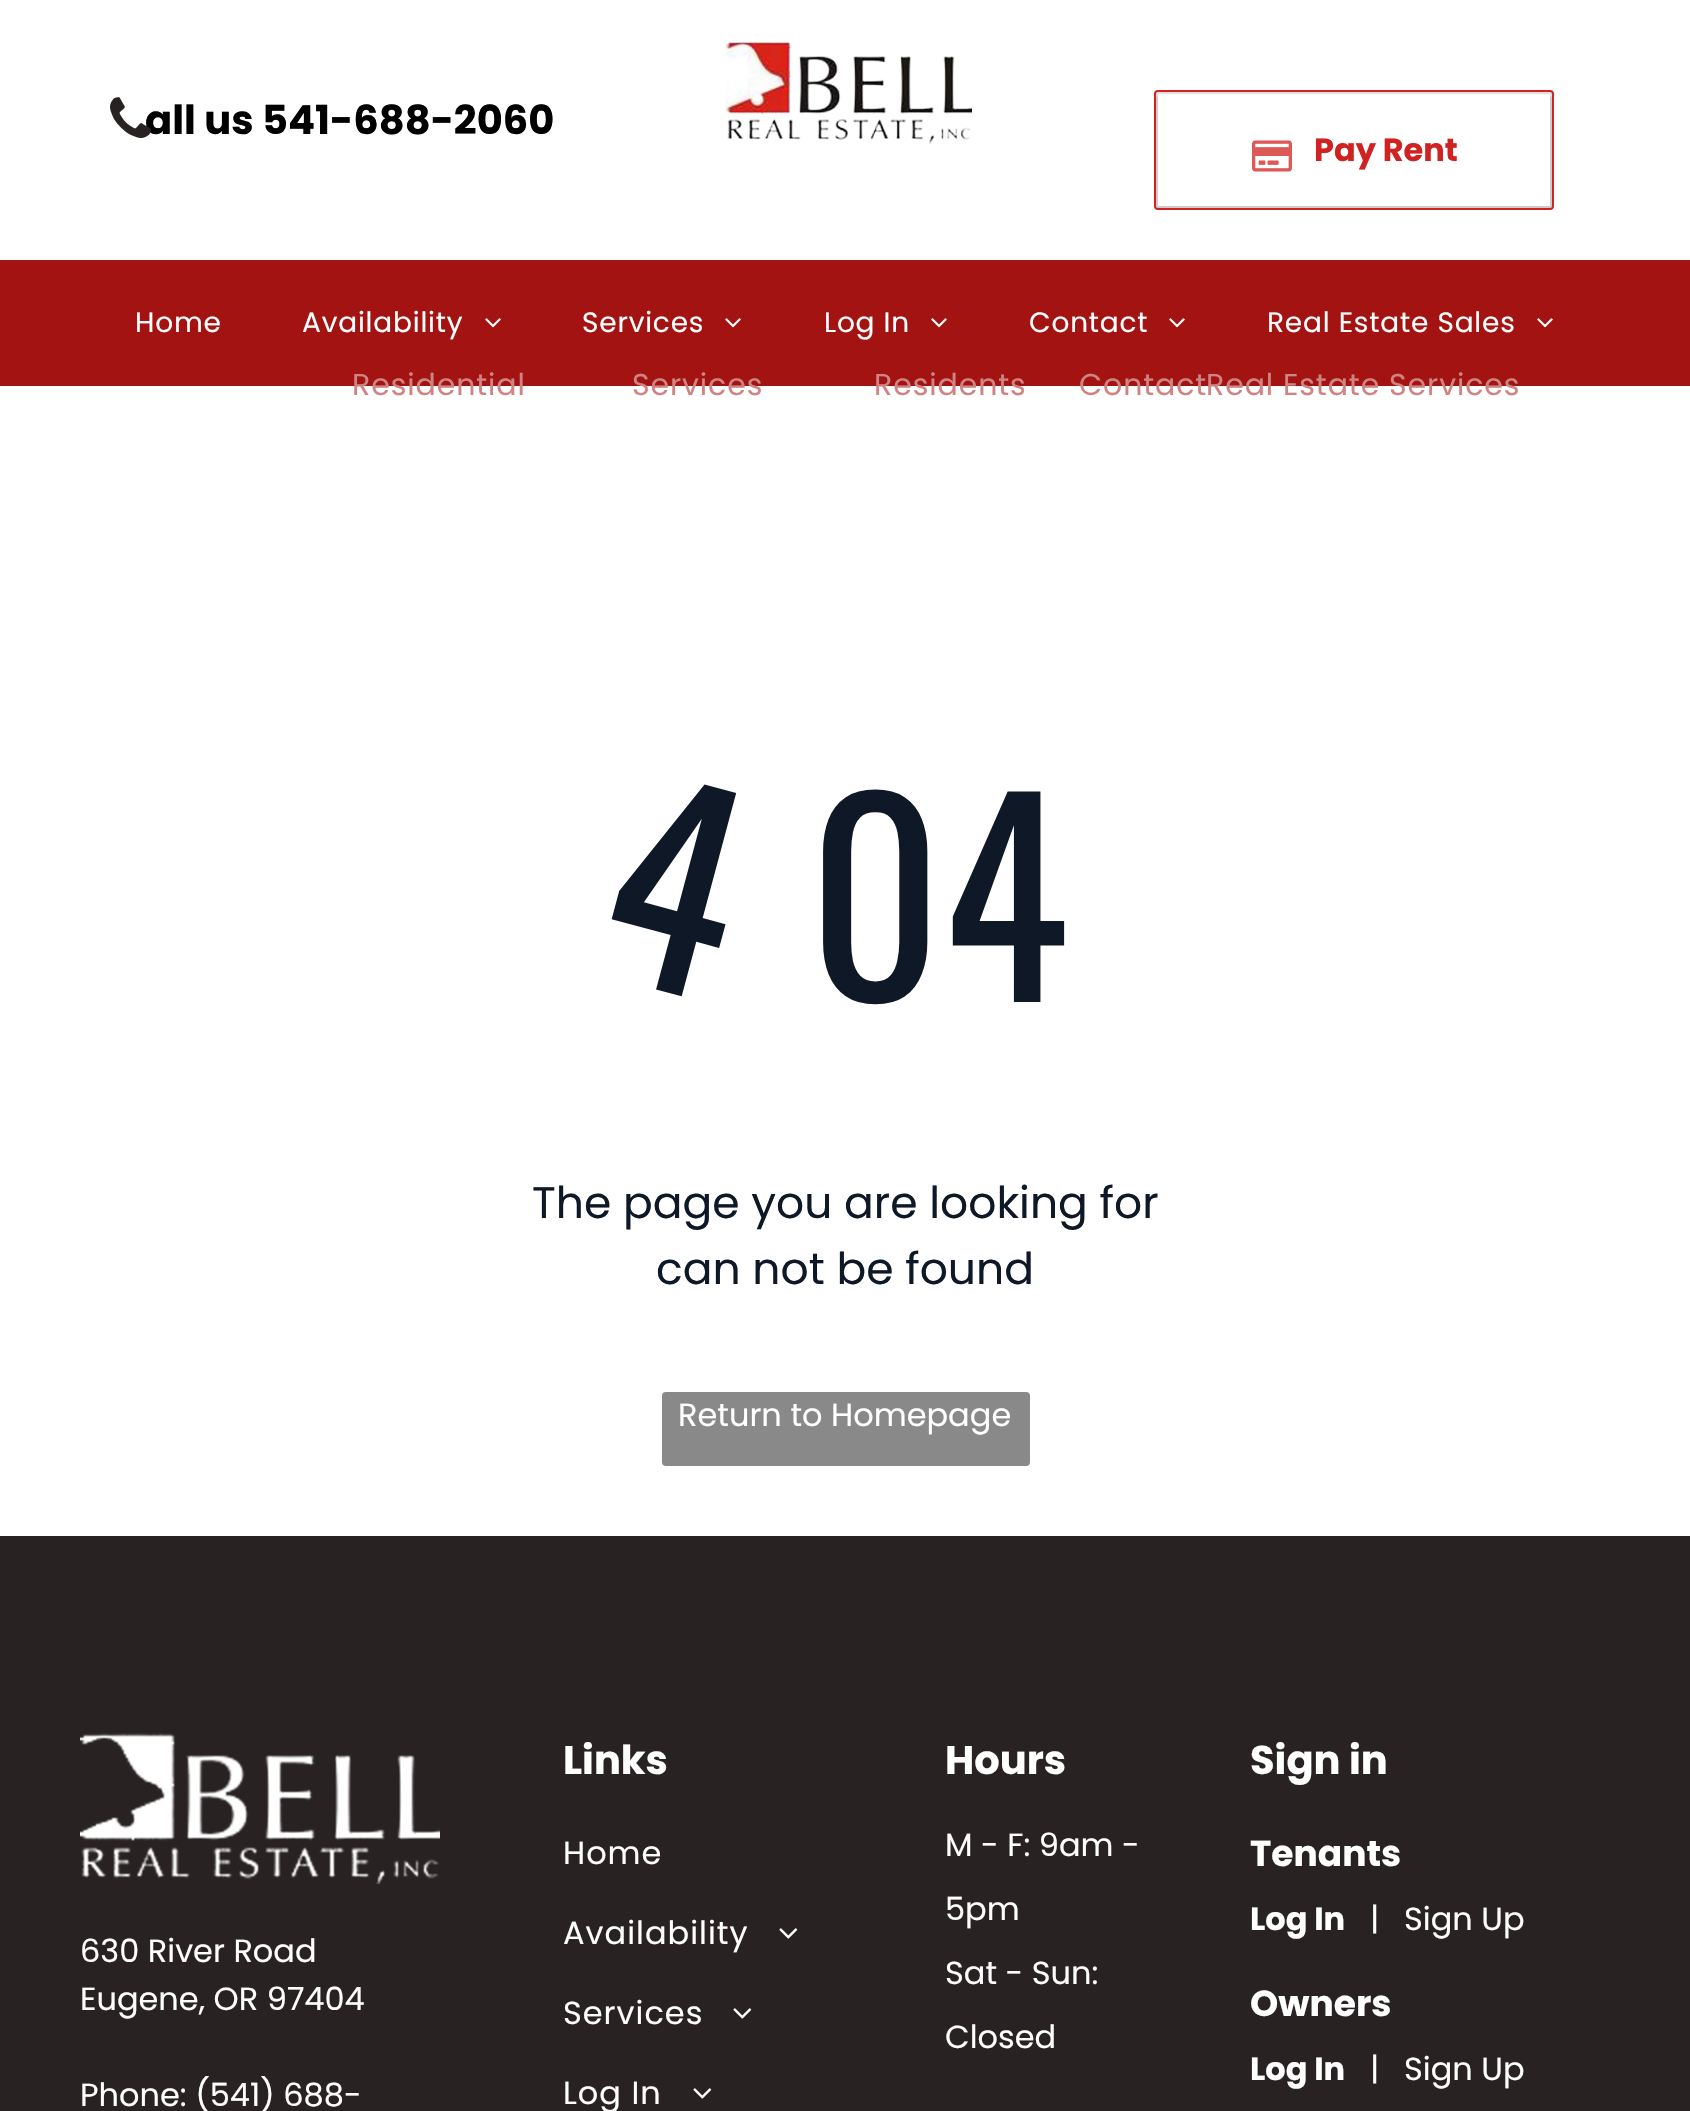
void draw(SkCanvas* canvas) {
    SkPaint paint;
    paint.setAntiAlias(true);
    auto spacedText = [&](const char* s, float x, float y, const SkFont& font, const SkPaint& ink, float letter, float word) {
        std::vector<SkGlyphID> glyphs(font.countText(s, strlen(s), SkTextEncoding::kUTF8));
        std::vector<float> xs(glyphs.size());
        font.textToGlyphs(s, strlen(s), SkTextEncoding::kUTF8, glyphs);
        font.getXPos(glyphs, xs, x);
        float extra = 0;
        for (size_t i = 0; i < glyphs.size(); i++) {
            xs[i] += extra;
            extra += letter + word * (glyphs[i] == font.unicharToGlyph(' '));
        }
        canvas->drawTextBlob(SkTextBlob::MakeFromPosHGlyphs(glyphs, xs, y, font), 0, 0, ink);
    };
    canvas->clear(0xFFFFFFFF);
    SkFont font1(fontMgr->matchFamilyStyle("Poppins", SkFontStyle::Bold()), 40);
    font1.setSubpixel(true);
    paint.setColor(0xFF000000);
    canvas->drawString("all us 541-688-2060", 145, 134, font1, paint);
    canvas->drawImageRect(SkImages::DeferredFromEncodedData(SkData::MakeFromFileName("img1.png")), SkRect::MakeXYWH(110, 97, 41, 41), SkSamplingOptions());
    canvas->drawImageRect(SkImages::DeferredFromEncodedData(SkData::MakeFromFileName("img2.png")), SkRect::MakeXYWH(726, 41, 246, 103), SkSamplingOptions());
    paint.setStyle(SkPaint::kStroke_Style);
    paint.setStrokeWidth(2);
    paint.setColor(0xFFCCCCCC);
    canvas->drawRoundRect(SkRect::MakeXYWH(1157, 93, 394, 114), 1, 1, paint);
    paint.setStyle(SkPaint::kFill_Style);
    paint.setColor(0x66FFFFFF);
    canvas->drawPath(SkPathBuilder().moveTo(1158, 96).lineTo(1550, 96).cubicTo(1551, 96, 1552, 97, 1552, 98).cubicTo(1552, 96, 1553, 93, 1550, 92).lineTo(1158, 92).cubicTo(1155, 92, 1156, 96, 1156, 98).cubicTo(1156, 97, 1157, 96, 1158, 96).close().detach(), paint);
    paint.setStyle(SkPaint::kStroke_Style);
    paint.setColor(0xFFD02220);
    canvas->drawRoundRect(SkRect::MakeXYWH(1155, 91, 398, 118), 3, 3, paint);
    canvas->drawImageRect(SkImages::DeferredFromEncodedData(SkData::MakeFromFileName("img3.png")), SkRect::MakeXYWH(1252, 140, 40, 32), SkSamplingOptions());
    SkFont font2(fontMgr->matchFamilyStyle("Poppins", SkFontStyle::Bold()), 32);
    font2.setSubpixel(true);
    paint.setStyle(SkPaint::kFill_Style);
    canvas->drawString("Pay Rent", 1314, 161, font2, paint);
    paint.setColor(0xFFA31311);
    canvas->drawRect(SkRect::MakeXYWH(0, 260, 1690, 126), paint);
    SkFont font3(fontMgr->matchFamilyStyle("Poppins", SkFontStyle::Normal()), 28);
    font3.setSubpixel(true);
    paint.setColor(0xFFFFFFFF);
    spacedText("Home", 135, 332, font3, paint, 0.8f, 0);
    spacedText("Availability", 302, 332, font3, paint, 0.8f, 0);
    canvas->drawImageRect(SkImages::DeferredFromEncodedData(SkData::MakeFromFileName("img4.png")), SkRect::MakeXYWH(485, 318, 16, 10), SkSamplingOptions());
    SkFont font4(fontMgr->matchFamilyStyle("Poppins", SkFontStyle::Normal()), 30);
    font4.setSubpixel(true);
    paint.setColor(0xFFCF8483);
    spacedText("Residential", 352, 395, font4, paint, 0.9f, 0);
    paint.setColor(0xFFFFFFFF);
    spacedText("Services", 582, 332, font3, paint, 0.8f, 0);
    canvas->drawImageRect(SkImages::DeferredFromEncodedData(SkData::MakeFromFileName("img4.png")), SkRect::MakeXYWH(725, 318, 16, 10), SkSamplingOptions());
    paint.setColor(0xFFCF8483);
    spacedText("Services", 632, 395, font4, paint, 0.9f, 0);
    paint.setColor(0xFFFFFFFF);
    spacedText("Log In", 824, 332, font3, paint, 0.8f, 0);
    canvas->drawImageRect(SkImages::DeferredFromEncodedData(SkData::MakeFromFileName("img4.png")), SkRect::MakeXYWH(931, 318, 16, 10), SkSamplingOptions());
    paint.setColor(0xFFCF8483);
    spacedText("Residents", 874, 395, font4, paint, 0.9f, 0);
    paint.setColor(0xFFFFFFFF);
    spacedText("Contact", 1029, 332, font3, paint, 0.8f, 0);
    canvas->drawImageRect(SkImages::DeferredFromEncodedData(SkData::MakeFromFileName("img4.png")), SkRect::MakeXYWH(1169, 318, 16, 10), SkSamplingOptions());
    paint.setColor(0xFFCF8483);
    spacedText("Contact", 1079, 395, font4, paint, 0.9f, 0);
    paint.setColor(0xFFFFFFFF);
    spacedText("Real Estate Sales", 1267, 332, font3, paint, 0.8f, 0);
    canvas->drawImageRect(SkImages::DeferredFromEncodedData(SkData::MakeFromFileName("img4.png")), SkRect::MakeXYWH(1537, 318, 16, 10), SkSamplingOptions());
    paint.setColor(0xFFCF8483);
    spacedText("Real Estate Services", 1206, 395, font4, paint, 0.9f, 0);
    SkFont font5(fontMgr->matchFamilyStyle("Oswald", SkFontStyle::Normal()), 260);
    font5.setSubpixel(true);
    paint.setColor(0xFF0F1827);
    canvas->save();
    canvas->rotate(15, 587, 971);
    canvas->drawString("4", 587, 971, font5, paint);
    canvas->restore();
    canvas->drawString("04", 808, 1002, font5, paint);
    SkFont font6(fontMgr->matchFamilyStyle("Poppins", SkFontStyle::Normal()), 44);
    font6.setSubpixel(true);
    canvas->drawString("The page you are looking for", 532, 1218, font6, paint);
    canvas->drawString("can not be found", 656, 1284, font6, paint);
    paint.setColor(0xFF898989);
    canvas->drawRoundRect(SkRect::MakeXYWH(662, 1392, 368, 74), 4, 4, paint);
    SkFont font7(fontMgr->matchFamilyStyle("Poppins", SkFontStyle::Normal()), 32);
    font7.setSubpixel(true);
    paint.setColor(0xFFFFFFFF);
    canvas->drawString("Return to Homepage", 678, 1426, font7, paint);
    paint.setColor(0xFF282322);
    canvas->drawRect(SkRect::MakeXYWH(0, 1536, 1690, 575), paint);
    canvas->drawImageRect(SkImages::DeferredFromEncodedData(SkData::MakeFromFileName("img5.png")), SkRect::MakeXYWH(80, 1733, 360, 151), SkSamplingOptions());
    paint.setColor(0xFFFFFFFF);
    canvas->drawString("630 River Road", 80, 1962, font7, paint);
    canvas->drawString("Eugene, OR 97404", 80, 2010, font7, paint);
    canvas->drawString("Phone: (541) 688-", 80, 2106, font7, paint);
    canvas->drawString("Links", 563, 1774, font1, paint);
    spacedText("Home", 563, 1864, font7, paint, 1, 0);
    spacedText("Availability", 563, 1944, font7, paint, 1, 0);
    canvas->drawImageRect(SkImages::DeferredFromEncodedData(SkData::MakeFromFileName("img6.png")), SkRect::MakeXYWH(779, 1928, 19, 11), SkSamplingOptions());
    spacedText("Services", 563, 2024, font7, paint, 1, 0);
    canvas->drawImageRect(SkImages::DeferredFromEncodedData(SkData::MakeFromFileName("img6.png")), SkRect::MakeXYWH(733, 2008, 19, 11), SkSamplingOptions());
    spacedText("Log In", 563, 2104, font7, paint, 1, 0);
    canvas->drawImageRect(SkImages::DeferredFromEncodedData(SkData::MakeFromFileName("img6.png")), SkRect::MakeXYWH(693, 2088, 19, 11), SkSamplingOptions());
    canvas->drawString("Hours", 945, 1774, font1, paint);
    canvas->drawString("M - F: 9am -", 945, 1856, font7, paint);
    canvas->drawString("5pm", 945, 1920, font7, paint);
    canvas->drawString("Sat - Sun:", 945, 1984, font7, paint);
    canvas->drawString("Closed", 945, 2048, font7, paint);
    canvas->drawString("Sign in", 1250, 1774, font1, paint);
    SkFont font8(fontMgr->matchFamilyStyle("Poppins", SkFontStyle::Bold()), 36);
    font8.setSubpixel(true);
    canvas->drawString("Tenants", 1250, 1866, font8, paint);
    canvas->drawString("Log In", 1250, 1930, font2, paint);
    canvas->drawString("|", 1370, 1930, font7, paint);
    canvas->drawString("Sign Up", 1404, 1930, font7, paint);
    canvas->drawString("Owners", 1250, 2016, font8, paint);
    canvas->drawString("Log In", 1250, 2080, font2, paint);
    canvas->drawString("|", 1370, 2080, font7, paint);
    canvas->drawString("Sign Up", 1404, 2080, font7, paint);
}
